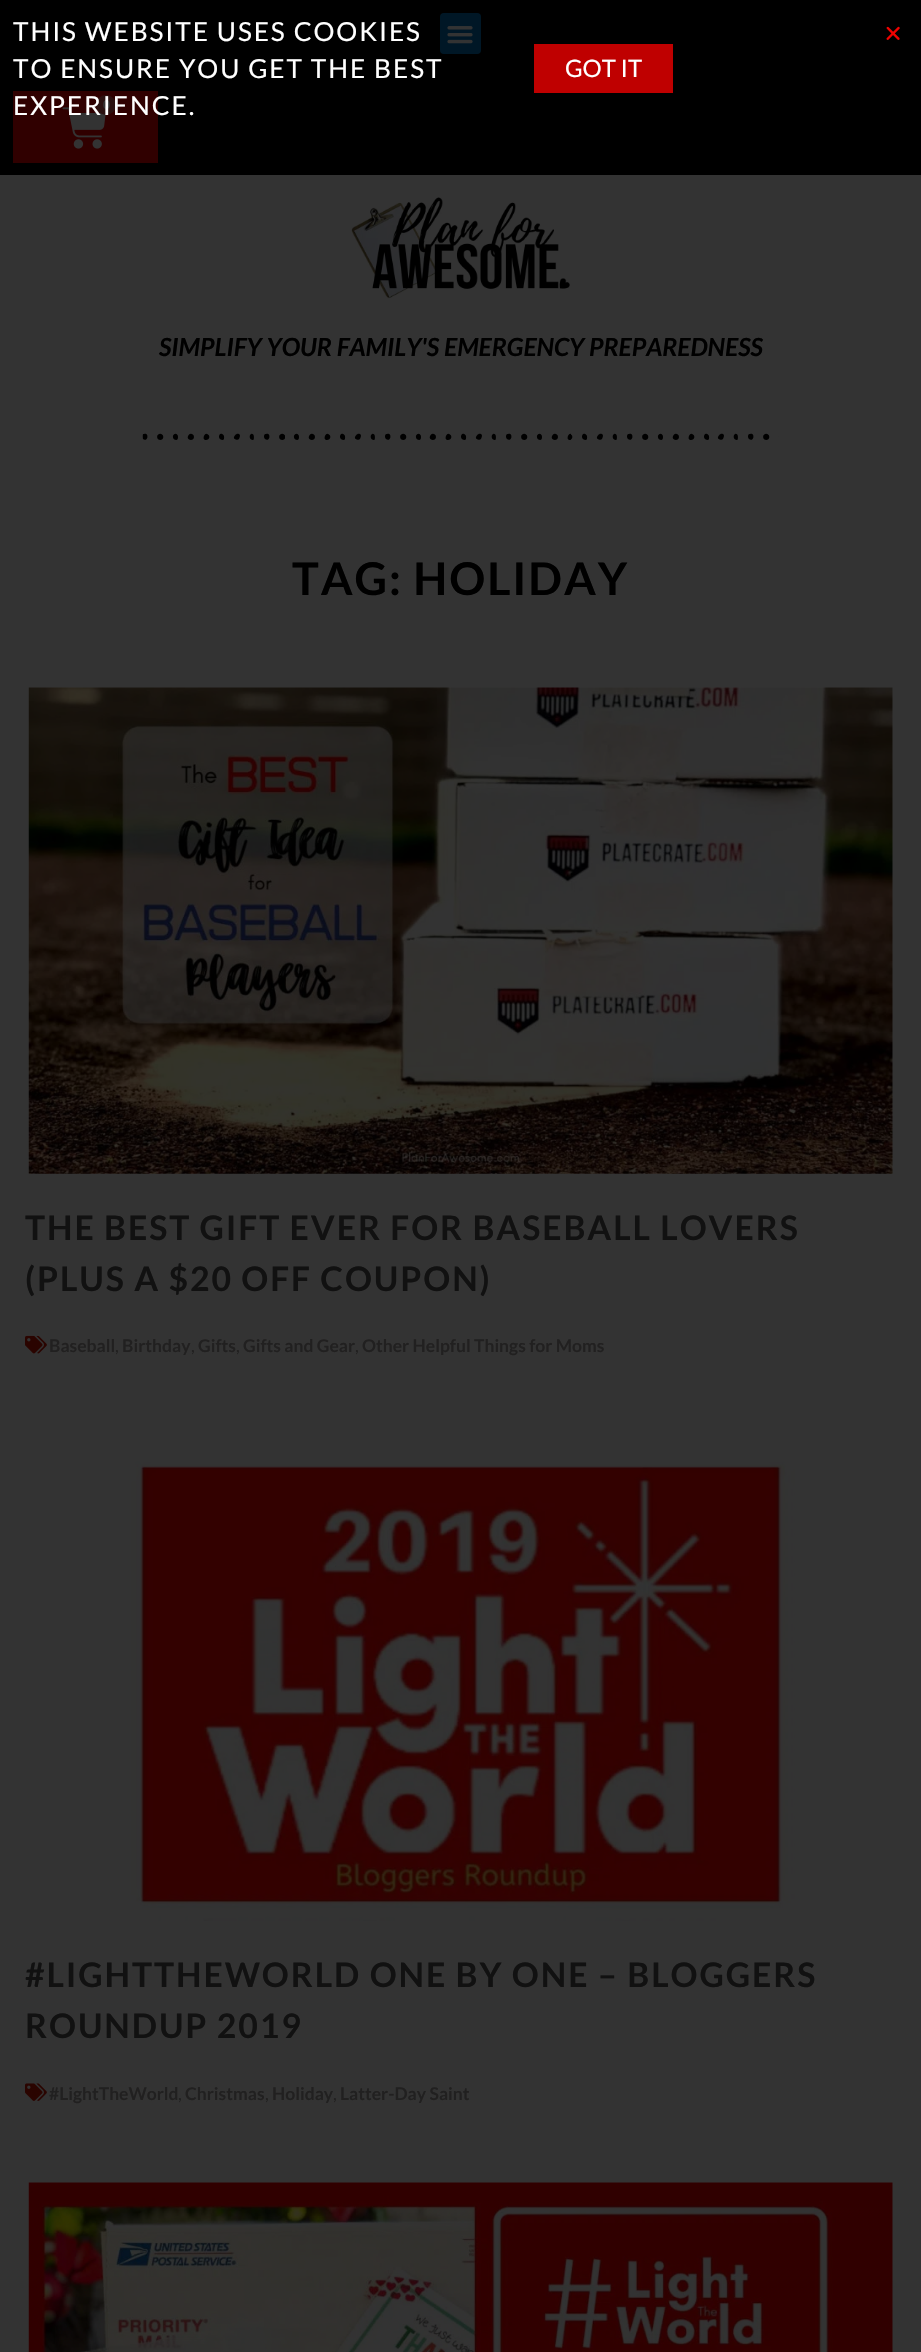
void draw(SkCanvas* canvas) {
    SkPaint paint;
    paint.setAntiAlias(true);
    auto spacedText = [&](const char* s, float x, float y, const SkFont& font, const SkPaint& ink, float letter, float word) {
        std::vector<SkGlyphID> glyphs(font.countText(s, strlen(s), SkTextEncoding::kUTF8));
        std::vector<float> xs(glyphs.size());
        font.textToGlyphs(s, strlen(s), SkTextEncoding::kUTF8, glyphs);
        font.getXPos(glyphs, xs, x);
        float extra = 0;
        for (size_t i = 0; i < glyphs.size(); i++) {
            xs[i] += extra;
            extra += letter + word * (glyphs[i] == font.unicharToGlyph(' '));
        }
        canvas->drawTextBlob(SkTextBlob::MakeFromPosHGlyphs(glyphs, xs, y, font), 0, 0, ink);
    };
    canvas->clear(0xFF333333);
    paint.setColor(0xFF000000);
    canvas->drawRect(SkRect::MakeXYWH(0, 0, 921, 175), paint);
    SkFont font1(fontMgr->matchFamilyStyle("Lato", SkFontStyle::Normal()), 26.25f);
    font1.setSubpixel(true);
    paint.setColor(0xFFFFFFFF);
    spacedText("THIS WEBSITE USES COOKIES", 13, 41, font1, paint, 1.9f, 0);
    spacedText("TO ENSURE YOU GET THE BEST", 13, 78, font1, paint, 1.9f, 0);
    paint.setColor(0xFF300000);
    canvas->drawRect(SkRect::MakeXYWH(13, 91, 145, 72), paint);
    canvas->drawImageRect(SkImages::DeferredFromEncodedData(SkData::MakeFromFileName("img3.png")), SkRect::MakeXYWH(62, 107, 44, 42), SkSamplingOptions());
    paint.setColor(0xFF2B1110);
    canvas->drawCircle(106, 105, 10, paint);
    SkFont font2(fontMgr->matchFamilyStyle("Lato", SkFontStyle::Bold()), 12);
    font2.setSubpixel(true);
    paint.setColor(0xFF333333);
    canvas->drawString("0", 103, 109, font2, paint);
    paint.setColor(0xFFFFFFFF);
    spacedText("EXPERIENCE.", 13, 115, font1, paint, 1.9f, 0);
    paint.setColor(0xFFBF0000);
    canvas->drawRect(SkRect::MakeXYWH(534, 44, 139, 49), paint);
    SkFont font3(fontMgr->matchFamilyStyle("Lato", SkFontStyle::Normal()), 24);
    font3.setSubpixel(true);
    paint.setColor(0xFFFFFFFF);
    canvas->drawString("GOT IT", 565, 77, font3, paint);
    canvas->drawImageRect(SkImages::DeferredFromEncodedData(SkData::MakeFromFileName("img1.png")), SkRect::MakeXYWH(886, 26, 14, 14), SkSamplingOptions());
    paint.setColor(0xFF001726);
    canvas->drawRoundRect(SkRect::MakeXYWH(440, 13, 41, 41), 4, 4, paint);
    canvas->drawImageRect(SkImages::DeferredFromEncodedData(SkData::MakeFromFileName("img2.png")), SkRect::MakeXYWH(447, 26, 26, 18), SkSamplingOptions());
    canvas->drawImageRect(SkImages::DeferredFromEncodedData(SkData::MakeFromFileName("img4.png")), SkRect::MakeXYWH(351, 197, 219, 102), SkSamplingOptions());
    SkFont font4(fontMgr->matchFamilyStyle("Lato", SkFontStyle::BoldItalic()), 25);
    font4.setSubpixel(true);
    paint.setColor(0xFF000000);
    canvas->drawString("SIMPLIFY YOUR FAMILY'S EMERGENCY PREPAREDNESS", 159, 356, font4, paint);
    canvas->drawImageRect(SkImages::DeferredFromEncodedData(SkData::MakeFromFileName("img5.png")), SkRect::MakeXYWH(142, 433, 637, 7), SkSamplingOptions());
    SkFont font5(fontMgr->matchFamilyStyle("Lato", SkFontStyle::Bold()), 45);
    font5.setSubpixel(true);
    spacedText("TAG: HOLIDAY", 292, 595, font5, paint, 1.9f, 0);
    canvas->drawImageRect(SkImages::DeferredFromEncodedData(SkData::MakeFromFileName("img6.png")), SkRect::MakeXYWH(28, 687, 865, 487), SkSamplingOptions());
    SkFont font6(fontMgr->matchFamilyStyle("Lato", SkFontStyle::Bold()), 33.75f);
    font6.setSubpixel(true);
    paint.setColor(0xFF111111);
    spacedText("THE BEST GIFT EVER FOR BASEBALL LOVERS", 25, 1240, font6, paint, 1.9f, 0);
    spacedText("(PLUS A $20 OFF COUPON)", 25, 1291, font6, paint, 1.9f, 0);
    canvas->drawImageRect(SkImages::DeferredFromEncodedData(SkData::MakeFromFileName("img7.png")), SkRect::MakeXYWH(25, 1335, 22, 19), SkSamplingOptions());
    SkFont font7(fontMgr->matchFamilyStyle("Lato", SkFontStyle::Bold()), 17.5f);
    font7.setSubpixel(true);
    paint.setColor(0xFF212020);
    canvas->drawString("Baseball", 49, 1352, font7, paint);
    SkFont font8(fontMgr->matchFamilyStyle("Lato", SkFontStyle::Normal()), 17.5f);
    font8.setSubpixel(true);
    canvas->drawString(",", 115, 1352, font8, paint);
    canvas->drawString("Birthday", 122, 1352, font7, paint);
    canvas->drawString(",", 191, 1352, font8, paint);
    canvas->drawString("Gifts", 198, 1352, font7, paint);
    canvas->drawString(",", 236, 1352, font8, paint);
    canvas->drawString("Gifts and Gear", 243, 1352, font7, paint);
    canvas->drawString(",", 355, 1352, font8, paint);
    canvas->drawString("Other Helpful Things for Moms", 362, 1352, font7, paint);
    canvas->drawImageRect(SkImages::DeferredFromEncodedData(SkData::MakeFromFileName("img8.png")), SkRect::MakeXYWH(131, 1461, 664, 460), SkSamplingOptions());
    paint.setColor(0xFF111111);
    spacedText("#LIGHTTHEWORLD ONE BY ONE – BLOGGERS", 25, 1987, font6, paint, 1.9f, 0);
    spacedText("ROUNDUP 2019", 25, 2038, font6, paint, 1.9f, 0);
    canvas->drawImageRect(SkImages::DeferredFromEncodedData(SkData::MakeFromFileName("img9.png")), SkRect::MakeXYWH(25, 2083, 22, 18), SkSamplingOptions());
    paint.setColor(0xFF212020);
    canvas->drawString("#LightTheWorld", 49, 2100, font7, paint);
    canvas->drawString(",", 178, 2100, font8, paint);
    canvas->drawString("Christmas", 185, 2100, font7, paint);
    canvas->drawString(",", 265, 2100, font8, paint);
    canvas->drawString("Holiday", 272, 2100, font7, paint);
    canvas->drawString(",", 333, 2100, font8, paint);
    canvas->drawString("Latter-Day Saint", 340, 2100, font7, paint);
    canvas->drawImageRect(SkImages::DeferredFromEncodedData(SkData::MakeFromFileName("img10.png")), SkRect::MakeXYWH(28, 2182, 865, 170), SkSamplingOptions());
}
